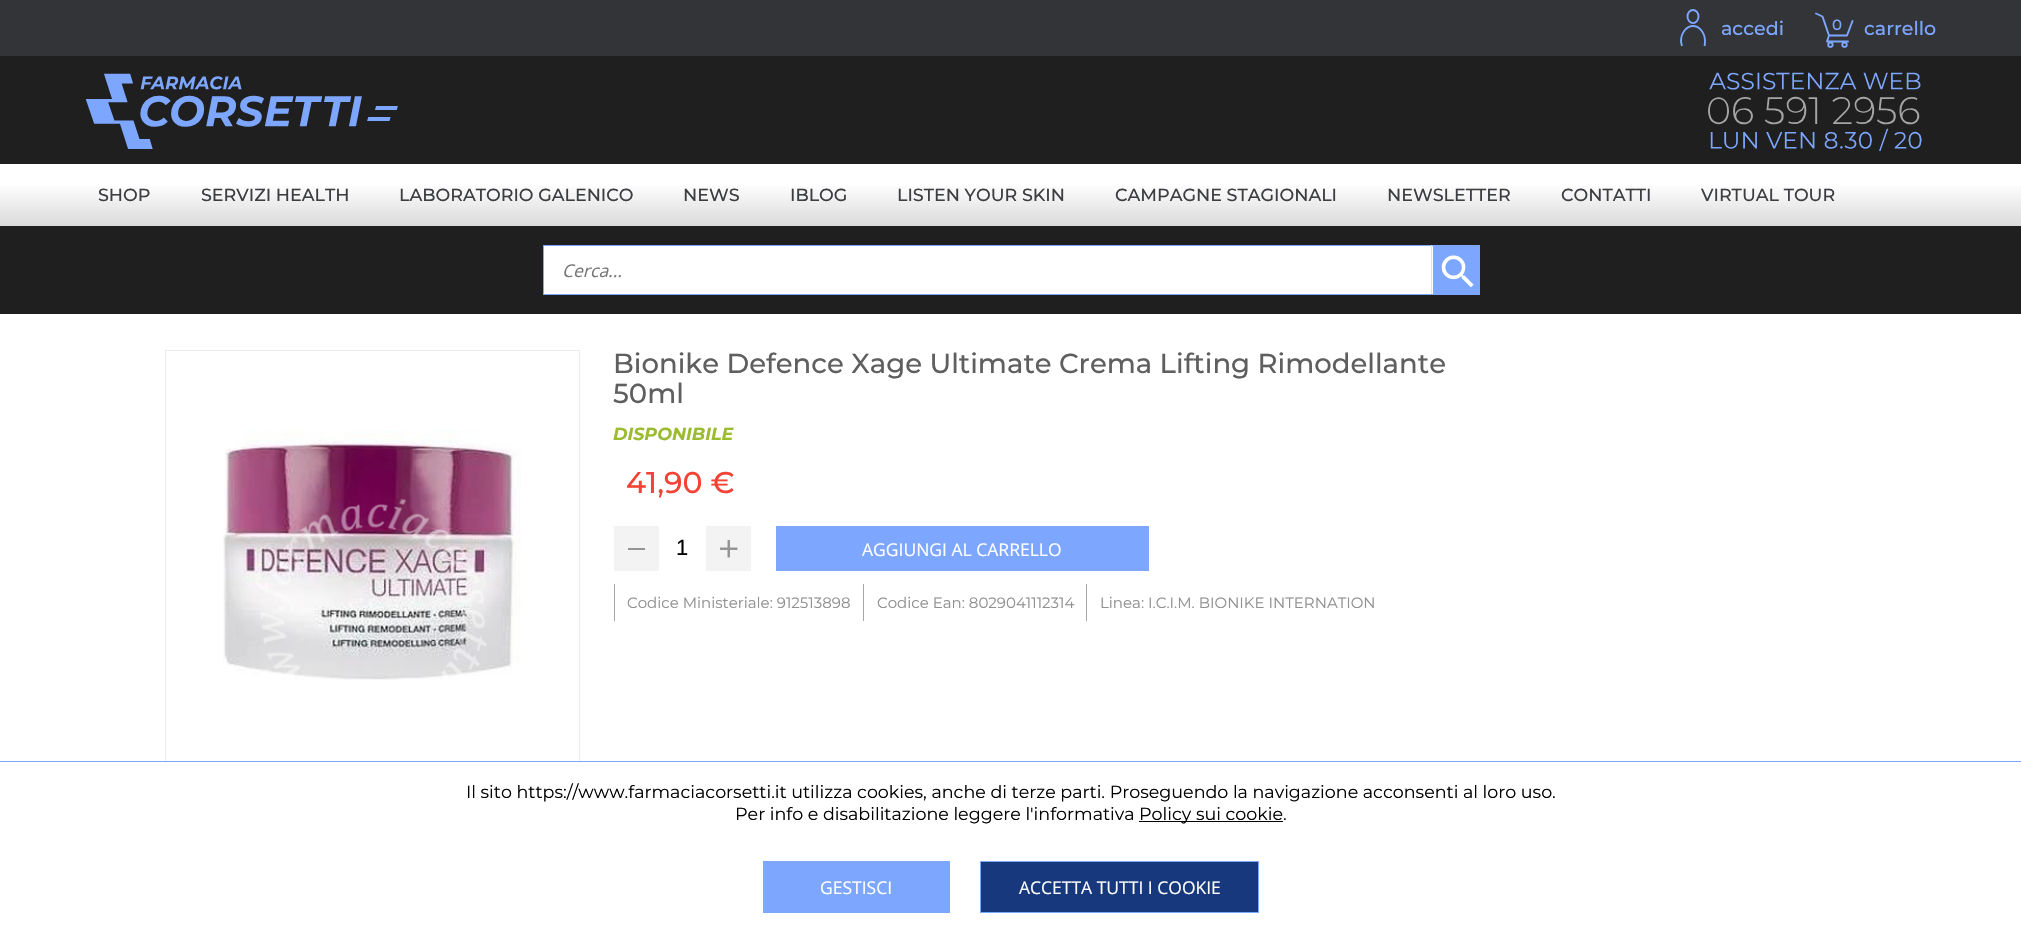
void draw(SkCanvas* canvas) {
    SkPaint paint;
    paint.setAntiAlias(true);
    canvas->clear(0xFFFFFFFF);
    paint.setColor(0xFF333438);
    canvas->drawRect(SkRect::MakeXYWH(0, 0, 2021, 56), paint);
    paint.setStyle(SkPaint::kStroke_Style);
    paint.setStrokeWidth(1.9f);
    paint.setColor(0xFF7DA7FF);
    canvas->drawOval(SkRect::MakeXYWH(1687.5f, 10, 11, 13), paint);
    canvas->drawPath(SkPathBuilder().moveTo(1682, 46).cubicTo(1681.5f, 44.5f, 1681, 43, 1681, 41).cubicTo(1681, 33, 1686.5f, 26, 1693, 26).cubicTo(1699.5f, 26, 1705, 33, 1705, 41).cubicTo(1705, 43, 1705, 44.5f, 1704.5f, 46).detach(), paint);
    SkFont font1(fontMgr->matchFamilyStyle("Montserrat", SkFontStyle(500, SkFontStyle::kNormal_Width, SkFontStyle::kUpright_Slant)), 19);
    font1.setSubpixel(true);
    paint.setStyle(SkPaint::kFill_Style);
    canvas->drawString("accedi", 1721, 35, font1, paint);
    paint.setStyle(SkPaint::kStroke_Style);
    paint.setStrokeCap(SkPaint::kRound_Cap);
    paint.setStrokeJoin(SkPaint::kRound_Join);
    canvas->drawPath(SkPathBuilder().moveTo(1816, 13.5f).lineTo(1822.5f, 16.5f).lineTo(1829, 35.5f).lineTo(1847, 35.5f).lineTo(1852.5f, 21).moveTo(1848, 41.5f).lineTo(1827, 41.5f).lineTo(1829, 35.5f).detach(), paint);
    paint.setStrokeCap(SkPaint::kButt_Cap);
    paint.setStrokeJoin(SkPaint::kMiter_Join);
    canvas->drawCircle(1844.5f, 44.7f, 2.2f, paint);
    canvas->drawCircle(1830.4f, 44.7f, 2.2f, paint);
    SkFont font2(fontMgr->matchFamilyStyle("Montserrat", SkFontStyle(500, SkFontStyle::kNormal_Width, SkFontStyle::kUpright_Slant)), 15);
    font2.setSubpixel(true);
    paint.setStyle(SkPaint::kFill_Style);
    canvas->drawString("0", 1832, 30, font2, paint);
    canvas->drawString("carrello", 1864, 35, font1, paint);
    paint.setColor(0xFF1F1F1F);
    canvas->drawRect(SkRect::MakeXYWH(0, 56, 2021, 108), paint);
    canvas->drawImageRect(SkImages::DeferredFromEncodedData(SkData::MakeFromFileName("img1.png")), SkRect::MakeXYWH(85, 72, 1837, 79), SkSamplingOptions());
    {
        const SkColor colors[] = {0xFFFFFFFF, 0xFFDADADA};
        const float stops[] = {0.31f, 1};
        const SkPoint ends[] = {{1011, 164}, {1011, 226}};
        paint.setShader(SkGradientShader::MakeLinear(ends, colors, stops, 2, SkTileMode::kClamp));
        paint.setAlpha(255);
    }
    canvas->drawRect(SkRect::MakeXYWH(0, 186, 2021, 40), paint);
    SkFont font3(fontMgr->matchFamilyStyle("Montserrat", SkFontStyle(500, SkFontStyle::kNormal_Width, SkFontStyle::kUpright_Slant)), 17.5f);
    font3.setSubpixel(true);
    paint.setShader(nullptr);
    paint.setColor(0xFF3D3E42);
    canvas->drawString("SHOP", 98, 201, font3, paint);
    canvas->drawString("SERVIZI HEALTH", 201, 201, font3, paint);
    canvas->drawString("LABORATORIO GALENICO", 399, 201, font3, paint);
    canvas->drawString("NEWS", 683, 201, font3, paint);
    canvas->drawString("IBLOG", 790, 201, font3, paint);
    canvas->drawString("LISTEN YOUR SKIN", 897, 201, font3, paint);
    canvas->drawString("CAMPAGNE STAGIONALI", 1115, 201, font3, paint);
    canvas->drawString("NEWSLETTER", 1387, 201, font3, paint);
    canvas->drawString("CONTATTI", 1561, 201, font3, paint);
    canvas->drawString("VIRTUAL TOUR", 1701, 201, font3, paint);
    paint.setColor(0xFF1F1F1F);
    canvas->drawRect(SkRect::MakeXYWH(0, 226, 2021, 88), paint);
    paint.setColor(0xFFFFFFFF);
    canvas->drawRect(SkRect::MakeXYWH(544, 246, 889, 48), paint);
    paint.setColor(0xFF7DA7FF);
    canvas->drawRect(SkRect::MakeXYWH(543, 245, 890, 1), paint);
    paint.setColor(0xFFE2E2E2);
    canvas->drawRect(SkRect::MakeXYWH(1431, 245, 1, 50), paint);
    paint.setColor(0xFF7DA7FF);
    canvas->drawRect(SkRect::MakeXYWH(543, 294, 890, 1), paint);
    canvas->drawRect(SkRect::MakeXYWH(543, 245, 1, 50), paint);
    SkFont font4(fontMgr->matchFamilyStyle("Open Sans", SkFontStyle::Italic()), 17.5f);
    font4.setSubpixel(true);
    paint.setColor(0xFF757575);
    canvas->drawString("Cerca...", 562, 277, font4, paint);
    paint.setColor(0xFF7DA7FF);
    canvas->drawRect(SkRect::MakeXYWH(1433, 245, 47, 50), paint);
    canvas->drawImageRect(SkImages::DeferredFromEncodedData(SkData::MakeFromFileName("img2.png")), SkRect::MakeXYWH(1441, 255, 33, 33), SkSamplingOptions());
    paint.setStyle(SkPaint::kStroke_Style);
    paint.setStrokeWidth(1);
    paint.setColor(0xFFEBEBEB);
    canvas->drawRect(SkRect::MakeXYWH(165.5f, 350.5f, 414, 418), paint);
    canvas->drawImageRect(SkImages::DeferredFromEncodedData(SkData::MakeFromFileName("img3.png")), SkRect::MakeXYWH(223, 430, 298, 250), SkSamplingOptions());
    SkFont font5(fontMgr->matchFamilyStyle("Montserrat", SkFontStyle(500, SkFontStyle::kNormal_Width, SkFontStyle::kUpright_Slant)), 27.5f);
    font5.setSubpixel(true);
    paint.setStyle(SkPaint::kFill_Style);
    paint.setColor(0xFF5F5F5F);
    canvas->drawString("Bionike Defence Xage Ultimate Crema Lifting Rimodellante", 613, 373, font5, paint);
    canvas->drawString("50ml", 613, 403, font5, paint);
    SkFont font6(fontMgr->matchFamilyStyle("Montserrat", SkFontStyle::BoldItalic()), 17.5f);
    font6.setSubpixel(true);
    paint.setColor(0xFF9BBB30);
    canvas->drawString("DISPONIBILE", 613, 440, font6, paint);
    SkFont font7(fontMgr->matchFamilyStyle("Montserrat", SkFontStyle(500, SkFontStyle::kNormal_Width, SkFontStyle::kUpright_Slant)), 30);
    font7.setSubpixel(true);
    paint.setColor(0xFFF44336);
    canvas->drawString("41,90 €", 626, 493, font7, paint);
    paint.setColor(0xFFF3F3F3);
    canvas->drawRect(SkRect::MakeXYWH(614, 526, 45, 45), paint);
    paint.setColor(0xFF949494);
    canvas->drawRect(SkRect::MakeXYWH(628, 548, 17, 2), paint);
    SkFont font8(fontMgr->matchFamilyStyle("Liberation Sans", SkFontStyle::Normal()), 22);
    font8.setSubpixel(true);
    paint.setColor(0xFF000000);
    canvas->drawString("1", 676, 555, font8, paint);
    paint.setColor(0xFFF3F3F3);
    canvas->drawRect(SkRect::MakeXYWH(706, 526, 45, 45), paint);
    canvas->drawImageRect(SkImages::DeferredFromEncodedData(SkData::MakeFromFileName("img4.png")), SkRect::MakeXYWH(720, 540, 18, 18), SkSamplingOptions());
    paint.setColor(0xFF7DA7FF);
    canvas->drawRect(SkRect::MakeXYWH(776, 526, 373, 45), paint);
    SkFont font9(fontMgr->matchFamilyStyle("Open Sans", SkFontStyle::Normal()), 17.5f);
    font9.setSubpixel(true);
    paint.setColor(0xFFFFFFFF);
    canvas->drawString("AGGIUNGI AL CARRELLO", 862, 556, font9, paint);
    paint.setColor(0xFFA7A7A7);
    canvas->drawRect(SkRect::MakeXYWH(614, 584, 1, 37), paint);
    SkFont font10(fontMgr->matchFamilyStyle("Montserrat", SkFontStyle::Normal()), 15);
    font10.setSubpixel(true);
    paint.setColor(0xFF909090);
    canvas->drawString("Codice Ministeriale: 912513898", 627, 608, font10, paint);
    paint.setColor(0xFFA7A7A7);
    canvas->drawRect(SkRect::MakeXYWH(863, 584, 1, 37), paint);
    paint.setColor(0xFF909090);
    canvas->drawString("Codice Ean: 8029041112314", 877, 608, font10, paint);
    paint.setColor(0xFFA7A7A7);
    canvas->drawRect(SkRect::MakeXYWH(1086, 584, 1, 37), paint);
    paint.setColor(0xFF909090);
    canvas->drawString("Linea: I.C.I.M. BIONIKE INTERNATION", 1100, 608, font10, paint);
    paint.setColor(0xFFFFFFFF);
    canvas->drawRect(SkRect::MakeXYWH(165, 762, 415, 7), paint);
    paint.setColor(0xFF7DA7FE);
    canvas->drawRect(SkRect::MakeXYWH(0, 761, 2021, 1), paint);
    SkFont font11(fontMgr->matchFamilyStyle("Montserrat", SkFontStyle::Normal()), 17.5f);
    font11.setSubpixel(true);
    paint.setColor(0xFF000000);
    canvas->drawString("Il sito https://www.farmaciacorsetti.it utilizza cookies, anche di terze parti. Proseguendo la navigazione acconsenti al loro uso.", 466, 798, font11, paint);
    canvas->drawString("Per info e disabilitazione leggere l'informativa", 735, 820, font11, paint);
    canvas->drawRect(SkRect::MakeXYWH(1139, 821, 144, 1), paint);
    canvas->drawString("Policy sui cookie.", 1139, 820, font11, paint);
    paint.setColor(0xFF7DA7FF);
    canvas->drawRect(SkRect::MakeXYWH(763, 861, 187, 52), paint);
    paint.setColor(0xFFFFFFFF);
    canvas->drawString("GESTISCI", 820, 894, font9, paint);
    paint.setColor(0xFF17387D);
    canvas->drawRect(SkRect::MakeXYWH(980.5f, 861.5f, 278, 51), paint);
    paint.setStyle(SkPaint::kStroke_Style);
    paint.setColor(0xFF7DA7FF);
    canvas->drawRect(SkRect::MakeXYWH(980.5f, 861.5f, 278, 51), paint);
    paint.setStyle(SkPaint::kFill_Style);
    paint.setColor(0xFFFFFFFF);
    canvas->drawString("ACCETTA TUTTI I COOKIE", 1019, 894, font9, paint);
}
